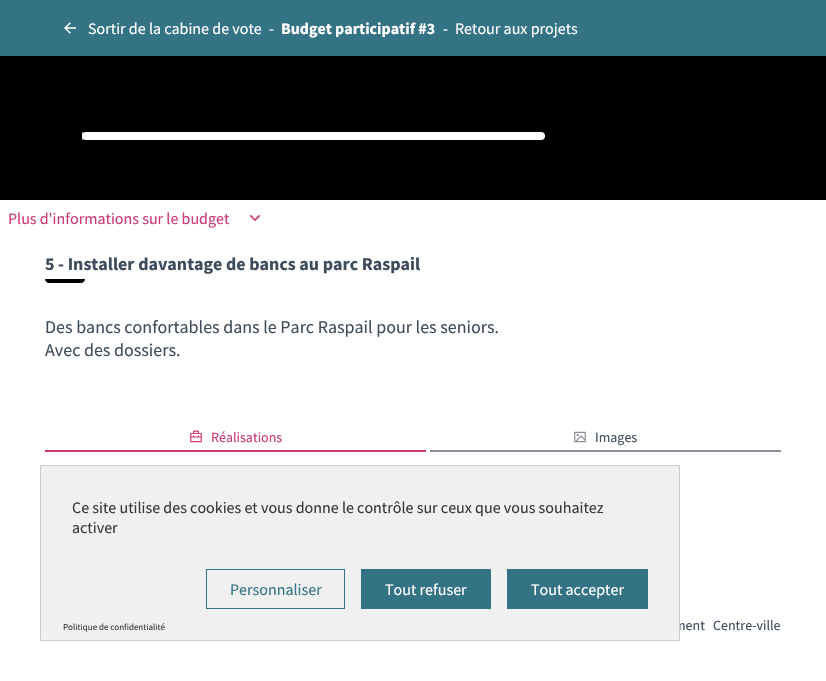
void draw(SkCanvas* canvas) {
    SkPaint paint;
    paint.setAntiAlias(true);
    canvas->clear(0xFFFFFFFF);
    paint.setColor(0xFF337383);
    canvas->drawRect(SkRect::MakeXYWH(0, 0, 826, 56), paint);
    canvas->drawImageRect(SkImages::DeferredFromEncodedData(SkData::MakeFromFileName("img1.png")), SkRect::MakeXYWH(64, 22, 12, 12), SkSamplingOptions());
    SkFont font1(fontMgr->matchFamilyStyle("Source Sans Pro", SkFontStyle::Normal()), 16);
    font1.setSubpixel(true);
    paint.setColor(0xFFFFFFFF);
    canvas->drawString("Sortir de la cabine de vote", 88, 34, font1, paint);
    canvas->drawString("-", 269, 34, font1, paint);
    SkFont font2(fontMgr->matchFamilyStyle("Source Sans Pro", SkFontStyle::Bold()), 16);
    font2.setSubpixel(true);
    canvas->drawString("Budget participatif #3", 281, 34, font2, paint);
    canvas->drawString("-", 443, 34, font1, paint);
    canvas->drawString("Retour aux projets", 455, 34, font1, paint);
    paint.setColor(0xFF000000);
    canvas->drawRect(SkRect::MakeXYWH(0, 56, 826, 144), paint);
    paint.setColor(0xFFFFFFFF);
    canvas->drawRoundRect(SkRect::MakeXYWH(82, 132, 463, 8), 4, 4, paint);
    paint.setColor(0xFFE1E5EF);
    canvas->drawPath(SkPathBuilder().moveTo(83, 132).lineTo(83, 140).cubicTo(82.5f, 140, 82, 139.5f, 82, 139).lineTo(82, 133).cubicTo(82, 132.5f, 82.5f, 132, 83, 132).close().detach(), paint);
    paint.setColor(0xFFCD3774);
    canvas->drawString("Plus d'informations sur le budget", 8, 224, font1, paint);
    canvas->drawImageRect(SkImages::DeferredFromEncodedData(SkData::MakeFromFileName("img2.png")), SkRect::MakeXYWH(249, 214, 12, 8), SkSamplingOptions());
    SkFont font3(fontMgr->matchFamilyStyle("Source Sans Pro", SkFontStyle::Bold()), 18);
    font3.setSubpixel(true);
    paint.setColor(0xFF3E4C5C);
    canvas->drawString("5 - Installer davantage de bancs au parc Raspail", 45, 270, font3, paint);
    paint.setColor(0xFF000000);
    canvas->drawPath(SkPathBuilder().moveTo(45, 279).lineTo(85, 279).cubicTo(85, 281, 83, 283, 81, 283).lineTo(49, 283).cubicTo(47, 283, 45, 281, 45, 279).close().detach(), paint);
    SkFont font4(fontMgr->matchFamilyStyle("Source Sans Pro", SkFontStyle::Normal()), 18);
    font4.setSubpixel(true);
    paint.setColor(0xFF3E4C5C);
    canvas->drawString("Des bancs confortables dans le Parc Raspail pour les seniors.", 45, 333, font4, paint);
    canvas->drawString("Avec des dossiers.", 45, 356, font4, paint);
    paint.setColor(0xFFCD3774);
    canvas->drawRect(SkRect::MakeXYWH(45, 450, 381, 2), paint);
    canvas->drawImageRect(SkImages::DeferredFromEncodedData(SkData::MakeFromFileName("img3.png")), SkRect::MakeXYWH(190, 430, 12, 13), SkSamplingOptions());
    SkFont font5(fontMgr->matchFamilyStyle("Source Sans Pro", SkFontStyle::Normal()), 14);
    font5.setSubpixel(true);
    canvas->drawString("Réalisations", 211, 442, font5, paint);
    paint.setColor(0xFF898E99);
    canvas->drawRect(SkRect::MakeXYWH(430, 450, 351, 2), paint);
    canvas->drawImageRect(SkImages::DeferredFromEncodedData(SkData::MakeFromFileName("img4.png")), SkRect::MakeXYWH(574, 431, 12, 12), SkSamplingOptions());
    paint.setColor(0xFF3E4C5C);
    canvas->drawString("Images", 595, 442, font5, paint);
    canvas->drawString("ment", 674, 630, font5, paint);
    canvas->drawString("Centre-ville", 713, 630, font5, paint);
    paint.setColor(0xFFF0F0F0);
    canvas->drawRect(SkRect::MakeXYWH(41, 471, 638, 160), paint);
    {
        const SkColor colors[] = {0xFF898989, 0xFFF0F0F0};
        const float stops[] = {0, 1};
        SkMatrix m = SkMatrix::Translate(360, 641).preScale(320, 10);
        paint.setShader(SkGradientShader::MakeRadial({0, 0}, 1, colors, stops, 2, SkTileMode::kClamp, 0, &m));
        paint.setAlpha(255);
    }
    canvas->drawRect(SkRect::MakeXYWH(41, 631, 638, 4), paint);
    {
        const SkColor colors[] = {0x00F0F0F0, 0xFFF0F0F0};
        const float stops[] = {0, 0.66f};
        const SkPoint ends[] = {{360, 623}, {360, 641}};
        paint.setShader(SkGradientShader::MakeLinear(ends, colors, stops, 2, SkTileMode::kClamp));
        paint.setAlpha(255);
    }
    canvas->drawRect(SkRect::MakeXYWH(41, 631, 638, 9), paint);
    {
        const SkColor colors[] = {0xFFF0F0F0, 0x00F0F0F0};
        const float stops[] = {0.33f, 1};
        const SkPoint ends[] = {{360, 465}, {360, 483}};
        paint.setShader(SkGradientShader::MakeLinear(ends, colors, stops, 2, SkTileMode::kClamp));
        paint.setAlpha(255);
    }
    canvas->drawRect(SkRect::MakeXYWH(41, 466, 638, 5), paint);
    paint.setStyle(SkPaint::kStroke_Style);
    paint.setStrokeWidth(1);
    paint.setShader(nullptr);
    paint.setColor(0xFFCECECE);
    canvas->drawRect(SkRect::MakeXYWH(40.5f, 465.5f, 639, 175), paint);
    paint.setStyle(SkPaint::kFill_Style);
    paint.setColor(0xFF383838);
    canvas->drawString("Ce site utilise des cookies et vous donne le contrôle sur ceux que vous souhaitez", 72, 513, font1, paint);
    canvas->drawString("activer", 72, 533, font1, paint);
    paint.setStyle(SkPaint::kStroke_Style);
    paint.setColor(0xFF337383);
    canvas->drawRect(SkRect::MakeXYWH(206.5f, 569.5f, 138, 39), paint);
    paint.setStyle(SkPaint::kFill_Style);
    canvas->drawString("Personnaliser", 230, 595, font1, paint);
    canvas->drawRect(SkRect::MakeXYWH(361, 569, 130, 40), paint);
    paint.setColor(0xFFFFFFFF);
    canvas->drawString("Tout refuser", 385, 595, font1, paint);
    paint.setColor(0xFF337383);
    canvas->drawRect(SkRect::MakeXYWH(507, 569, 141, 40), paint);
    paint.setColor(0xFFFFFFFF);
    canvas->drawString("Tout accepter", 531, 595, font1, paint);
    SkFont font6(fontMgr->matchFamilyStyle("Source Sans Pro", SkFontStyle::Normal()), 9);
    font6.setSubpixel(true);
    paint.setColor(0xFF383838);
    canvas->drawString("Politique de confidentialité", 63, 630, font6, paint);
}
